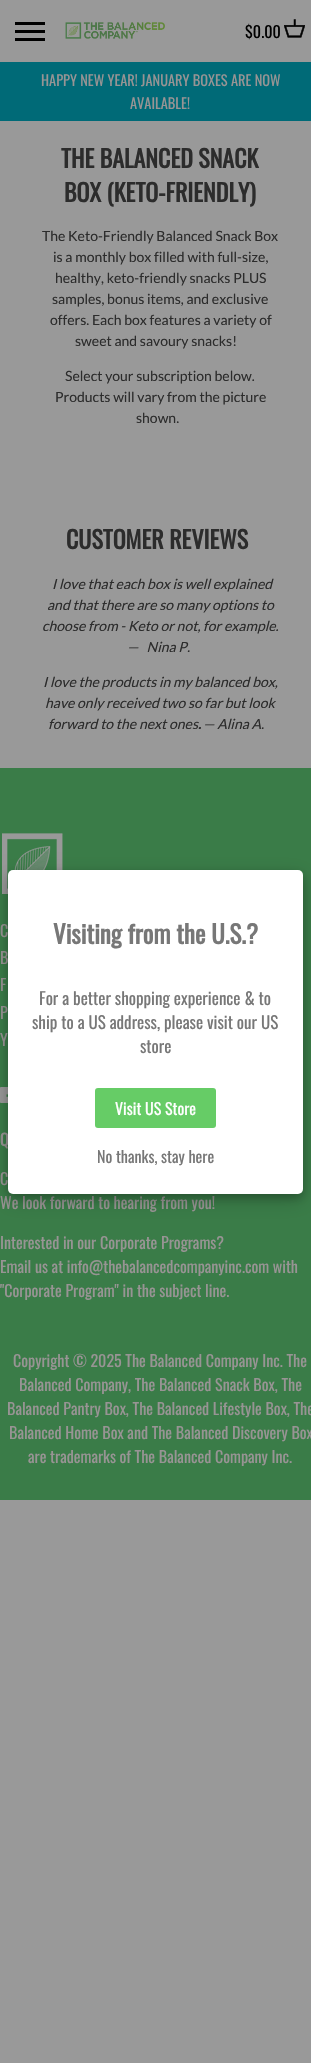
void draw(SkCanvas* canvas) {
    SkPaint paint;
    paint.setAntiAlias(true);
    canvas->clear(0xFF999999);
    paint.setColor(0xFF000000);
    canvas->drawRect(SkRect::MakeXYWH(15, 22, 30, 3), paint);
    canvas->drawRect(SkRect::MakeXYWH(15, 30, 30, 3), paint);
    canvas->drawRect(SkRect::MakeXYWH(15, 38, 30, 3), paint);
    canvas->drawImageRect(SkImages::DeferredFromEncodedData(SkData::MakeFromFileName("img1.png")), SkRect::MakeXYWH(65, 22, 100, 17), SkSamplingOptions());
    SkFont font1(fontMgr->matchFamilyStyle("Oswald", SkFontStyle::Normal()), 16);
    font1.setSubpixel(true);
    canvas->drawString("$0.00", 245, 38, font1, paint);
    canvas->drawImageRect(SkImages::DeferredFromEncodedData(SkData::MakeFromFileName("img2.png")), SkRect::MakeXYWH(284, 19, 21, 19), SkSamplingOptions());
    paint.setColor(0xFF006A77);
    canvas->drawRect(SkRect::MakeXYWH(0, 62, 311, 59), paint);
    SkFont font2(fontMgr->matchFamilyStyle("Oswald", SkFontStyle::Normal()), 14.4f);
    font2.setSubpixel(true);
    paint.setColor(0xFF989494);
    canvas->drawString("HAPPY NEW YEAR! JANUARY BOXES ARE NOW", 41, 86, font2, paint);
    canvas->drawString("AVAILABLE!", 130, 109, font2, paint);
    SkFont font3(fontMgr->matchFamilyStyle("Oswald", SkFontStyle::Bold()), 24);
    font3.setSubpixel(true);
    paint.setColor(0xFF2C2C2C);
    canvas->drawString("THE BALANCED SNACK", 61, 168, font3, paint);
    canvas->drawString("BOX (KETO-FRIENDLY)", 64, 202, font3, paint);
    SkFont font4(fontMgr->matchFamilyStyle("Lato", SkFontStyle::Normal()), 14);
    font4.setSubpixel(true);
    canvas->drawString("The Keto-Friendly Balanced Snack Box", 42, 241, font4, paint);
    canvas->drawString("is a monthly box filled with full-size,", 53, 262, font4, paint);
    canvas->drawString("healthy, keto-friendly snacks PLUS", 55, 283, font4, paint);
    canvas->drawString("samples, bonus items, and exclusive", 52, 304, font4, paint);
    canvas->drawString("offers. Each box features a variety of", 50, 325, font4, paint);
    canvas->drawString("sweet and savoury snacks!", 75, 346, font4, paint);
    canvas->drawString("Select your subscription below.", 65, 381, font4, paint);
    canvas->drawString("Products will vary from the picture", 55, 402, font4, paint);
    canvas->drawString("shown.", 136, 423, font4, paint);
    canvas->drawString("CUSTOMER REVIEWS", 66, 549, font3, paint);
    SkFont font5(fontMgr->matchFamilyStyle("Lato", SkFontStyle::Italic()), 14);
    font5.setSubpixel(true);
    canvas->drawString("I love that each box is well explained", 52, 589, font5, paint);
    canvas->drawString("and that there are so many options to", 47, 610, font5, paint);
    canvas->drawString("choose from - Keto or not, for example.", 42, 631, font5, paint);
    canvas->drawString("—   Nina P.", 127, 652, font5, paint);
    canvas->drawString("I love the products in my balanced box,", 43, 687, font5, paint);
    canvas->drawString("have only received two so far but look", 45, 708, font5, paint);
    canvas->drawString("forward to the next ones", 48, 729, font5, paint);
    SkFont font6(fontMgr->matchFamilyStyle("Lato", SkFontStyle::BoldItalic()), 14);
    font6.setSubpixel(true);
    canvas->drawString(".", 198, 729, font6, paint);
    canvas->drawString("— Alina A.", 203, 729, font5, paint);
    paint.setColor(0xFF3A7C48);
    canvas->drawRect(SkRect::MakeXYWH(0, 768, 311, 732), paint);
    canvas->drawImageRect(SkImages::DeferredFromEncodedData(SkData::MakeFromFileName("img3.png")), SkRect::MakeXYWH(2, 833, 61, 61), SkSamplingOptions());
    paint.setColor(0xFF989494);
    canvas->drawString("C", 0, 937, font1, paint);
    canvas->drawString("B", 0, 964, font1, paint);
    canvas->drawString("F", 0, 991, font1, paint);
    canvas->drawString("P", 0, 1019, font1, paint);
    canvas->drawString("Y", 0, 1046, font1, paint);
    canvas->drawImageRect(SkImages::DeferredFromEncodedData(SkData::MakeFromFileName("img4.png")), SkRect::MakeXYWH(0, 1087, 8, 16), SkSamplingOptions());
    SkFont font7(fontMgr->matchFamilyStyle("Oswald", SkFontStyle::Bold()), 16);
    font7.setSubpixel(true);
    canvas->drawString("Q", 0, 1146, font7, paint);
    canvas->drawString("C", 0, 1185, font1, paint);
    canvas->drawString("We look forward to hearing from you!", 0, 1209, font1, paint);
    canvas->drawString("Interested in our Corporate Programs?", 0, 1249, font1, paint);
    canvas->drawString("Email us at info@thebalancedcompanyinc.com with", 0, 1273, font1, paint);
    canvas->drawString("\"Corporate Program\" in the subject line.", 0, 1297, font1, paint);
    canvas->drawString("Copyright © 2025 The Balanced Company Inc. The", 13, 1367, font1, paint);
    canvas->drawString("Balanced Company, The Balanced Snack Box, The", 19, 1391, font1, paint);
    canvas->drawString("Balanced Pantry Box, The Balanced Lifestyle Box, The", 7, 1415, font1, paint);
    canvas->drawString("Balanced Home Box and The Balanced Discovery Box", 9, 1439, font1, paint);
    canvas->drawString("are trademarks of The Balanced Company Inc.", 28, 1463, font1, paint);
    paint.setColor(0x30000000);
    paint.setMaskFilter(SkMaskFilter::MakeBlur(kNormal_SkBlurStyle, 10));
    canvas->drawRoundRect(SkRect::MakeXYWH(8, 876, 295, 324), 5, 5, paint);
    paint.setMaskFilter(nullptr);
    paint.setColor(0x33000000);
    paint.setMaskFilter(SkMaskFilter::MakeBlur(kNormal_SkBlurStyle, 4));
    canvas->drawRoundRect(SkRect::MakeXYWH(8, 874, 295, 324), 5, 5, paint);
    paint.setMaskFilter(nullptr);
    paint.setColor(0xFFFFFFFF);
    canvas->drawRoundRect(SkRect::MakeXYWH(8, 870, 295, 324), 5, 5, paint);
    SkFont font8(fontMgr->matchFamilyStyle("Oswald", SkFontStyle::Bold()), 25);
    font8.setSubpixel(true);
    paint.setColor(0xFF777777);
    canvas->drawString("Visiting from the U.S.?", 53, 944, font8, paint);
    SkFont font9(fontMgr->matchFamilyStyle("Oswald", SkFontStyle::Normal()), 17);
    font9.setSubpixel(true);
    canvas->drawString("For a better shopping experience & to", 39, 1005, font9, paint);
    canvas->drawString("ship to a US address, please visit our US", 32, 1029, font9, paint);
    canvas->drawString("store", 140, 1053, font9, paint);
    paint.setColor(0xFF66CC66);
    canvas->drawRoundRect(SkRect::MakeXYWH(95, 1088, 121, 40), 3, 3, paint);
    paint.setColor(0xFFFFFFFF);
    canvas->drawString("Visit US Store", 115, 1115, font1, paint);
    paint.setColor(0xFF777777);
    canvas->drawString("No thanks, stay here", 97, 1163, font1, paint);
}
